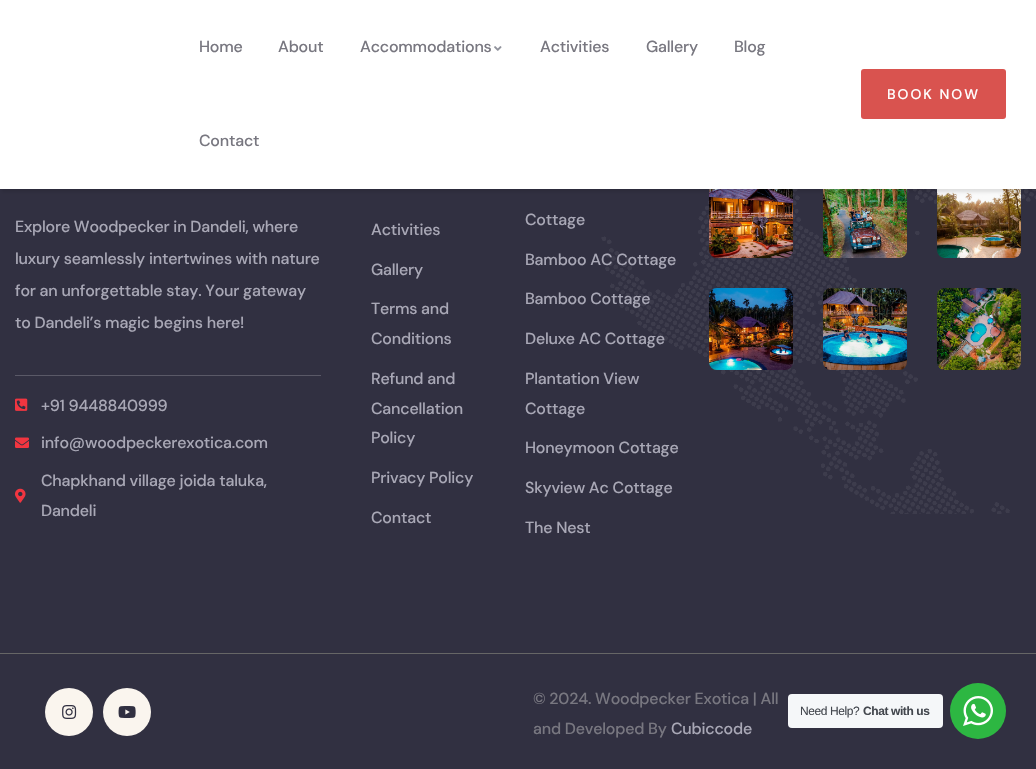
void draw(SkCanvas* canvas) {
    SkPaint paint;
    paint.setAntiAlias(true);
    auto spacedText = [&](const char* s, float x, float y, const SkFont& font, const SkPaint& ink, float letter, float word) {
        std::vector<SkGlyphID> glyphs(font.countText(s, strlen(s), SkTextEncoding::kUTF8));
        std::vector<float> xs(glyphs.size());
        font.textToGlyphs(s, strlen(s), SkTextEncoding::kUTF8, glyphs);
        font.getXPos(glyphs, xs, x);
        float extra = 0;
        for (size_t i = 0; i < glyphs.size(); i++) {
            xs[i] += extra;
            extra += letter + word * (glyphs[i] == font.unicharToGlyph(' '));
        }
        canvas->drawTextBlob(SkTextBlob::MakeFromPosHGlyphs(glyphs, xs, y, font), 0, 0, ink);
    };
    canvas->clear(0xFF313041);
    canvas->drawImageRect(SkImages::DeferredFromEncodedData(SkData::MakeFromFileName("img2.png")), SkRect::MakeXYWH(601, 189, 435, 325), SkSamplingOptions());
    canvas->drawImageRect(SkImages::DeferredFromEncodedData(SkData::MakeFromFileName("img6.png")), SkRect::MakeXYWH(709, 189, 84, 69), SkSamplingOptions());
    canvas->drawImageRect(SkImages::DeferredFromEncodedData(SkData::MakeFromFileName("img7.png")), SkRect::MakeXYWH(823, 189, 84, 69), SkSamplingOptions());
    canvas->drawImageRect(SkImages::DeferredFromEncodedData(SkData::MakeFromFileName("img8.png")), SkRect::MakeXYWH(937, 189, 84, 69), SkSamplingOptions());
    paint.setColor(0x1A000000);
    paint.setMaskFilter(SkMaskFilter::MakeBlur(kNormal_SkBlurStyle, 1.5f));
    canvas->drawRect(SkRect::MakeXYWH(2, 3, 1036, 189), paint);
    paint.setMaskFilter(nullptr);
    paint.setColor(0xFFFFFFFF);
    canvas->drawRect(SkRect::MakeXYWH(0, 0, 1036, 189), paint);
    SkFont font1(fontMgr->matchFamilyStyle("DM Sans", SkFontStyle(500, SkFontStyle::kNormal_Width, SkFontStyle::kUpright_Slant)), 16);
    font1.setSubpixel(true);
    paint.setColor(0xFF787780);
    spacedText("Home", 199, 52, font1, paint, -0.2f, 0);
    spacedText("About", 278, 52, font1, paint, -0.2f, 0);
    spacedText("Accommodations", 360, 52, font1, paint, -0.2f, 0);
    canvas->drawImageRect(SkImages::DeferredFromEncodedData(SkData::MakeFromFileName("img1.png")), SkRect::MakeXYWH(494, 46, 8, 5), SkSamplingOptions());
    spacedText("Activities", 540, 52, font1, paint, -0.2f, 0);
    spacedText("Gallery", 646, 52, font1, paint, -0.2f, 0);
    spacedText("Blog", 734, 52, font1, paint, -0.2f, 0);
    spacedText("Contact", 199, 146, font1, paint, -0.2f, 0);
    paint.setColor(0xFFD9534F);
    canvas->drawRoundRect(SkRect::MakeXYWH(861, 69, 145, 50), 3, 3, paint);
    SkFont font2(fontMgr->matchFamilyStyle("DM Sans", SkFontStyle(500, SkFontStyle::kNormal_Width, SkFontStyle::kUpright_Slant)), 14);
    font2.setSubpixel(true);
    paint.setColor(0xFFFFFFFF);
    spacedText("BOOK NOW", 887, 99, font2, paint, 2, 0);
    paint.setColor(0xFFA9A8B6);
    spacedText("Explore Woodpecker in Dandeli, where", 15, 232, font1, paint, -0.2f, 0);
    spacedText("luxury seamlessly intertwines with nature", 15, 264, font1, paint, -0.2f, 0);
    spacedText("for an unforgettable stay. Your gateway", 15, 296, font1, paint, -0.2f, 0);
    spacedText("to Dandeli’s magic begins here!", 15, 328, font1, paint, -0.2f, 0);
    paint.setColor(0xFF5A5967);
    canvas->drawRect(SkRect::MakeXYWH(15, 375, 306, 1), paint);
    canvas->drawImageRect(SkImages::DeferredFromEncodedData(SkData::MakeFromFileName("img3.png")), SkRect::MakeXYWH(15, 398, 13, 13), SkSamplingOptions());
    paint.setColor(0xFFA9A8B6);
    spacedText("+91 9448840999", 41, 411, font1, paint, -0.2f, 0);
    canvas->drawImageRect(SkImages::DeferredFromEncodedData(SkData::MakeFromFileName("img4.png")), SkRect::MakeXYWH(15, 437, 14, 11), SkSamplingOptions());
    spacedText("info@woodpeckerexotica.com", 41, 448, font1, paint, -0.2f, 0);
    canvas->drawImageRect(SkImages::DeferredFromEncodedData(SkData::MakeFromFileName("img5.png")), SkRect::MakeXYWH(15, 488, 11, 15), SkSamplingOptions());
    spacedText("Chapkhand village joida taluka,", 41, 486, font1, paint, -0.2f, 0);
    spacedText("Dandeli", 41, 516, font1, paint, -0.2f, 0);
    spacedText("Activities", 371, 235, font1, paint, -0.2f, 0);
    spacedText("Gallery", 371, 275, font1, paint, -0.2f, 0);
    spacedText("Terms and", 371, 314, font1, paint, -0.2f, 0);
    spacedText("Conditions", 371, 344, font1, paint, -0.2f, 0);
    spacedText("Refund and", 371, 384, font1, paint, -0.2f, 0);
    spacedText("Cancellation", 371, 414, font1, paint, -0.2f, 0);
    spacedText("Policy", 371, 443, font1, paint, -0.2f, 0);
    spacedText("Privacy Policy", 371, 483, font1, paint, -0.2f, 0);
    spacedText("Contact", 371, 523, font1, paint, -0.2f, 0);
    spacedText("Cottage", 525, 225, font1, paint, -0.2f, 0);
    spacedText("Bamboo AC Cottage", 525, 265, font1, paint, -0.2f, 0);
    spacedText("Bamboo Cottage", 525, 304, font1, paint, -0.2f, 0);
    spacedText("Deluxe AC Cottage", 525, 344, font1, paint, -0.2f, 0);
    spacedText("Plantation View", 525, 384, font1, paint, -0.2f, 0);
    spacedText("Cottage", 525, 414, font1, paint, -0.2f, 0);
    spacedText("Honeymoon Cottage", 525, 453, font1, paint, -0.2f, 0);
    spacedText("Skyview Ac Cottage", 525, 493, font1, paint, -0.2f, 0);
    spacedText("The Nest", 525, 533, font1, paint, -0.2f, 0);
    canvas->drawImageRect(SkImages::DeferredFromEncodedData(SkData::MakeFromFileName("img9.png")), SkRect::MakeXYWH(709, 288, 84, 82), SkSamplingOptions());
    canvas->drawImageRect(SkImages::DeferredFromEncodedData(SkData::MakeFromFileName("img10.png")), SkRect::MakeXYWH(823, 288, 84, 82), SkSamplingOptions());
    canvas->drawImageRect(SkImages::DeferredFromEncodedData(SkData::MakeFromFileName("img11.png")), SkRect::MakeXYWH(937, 288, 84, 82), SkSamplingOptions());
    paint.setColor(0xFF666666);
    canvas->drawRect(SkRect::MakeXYWH(0, 653, 1036, 1), paint);
    paint.setColor(0xFFFAF5EE);
    canvas->drawCircle(69, 712, 24, paint);
    canvas->drawImageRect(SkImages::DeferredFromEncodedData(SkData::MakeFromFileName("img12.png")), SkRect::MakeXYWH(62, 705, 15, 14), SkSamplingOptions());
    canvas->drawCircle(127, 712, 24, paint);
    canvas->drawImageRect(SkImages::DeferredFromEncodedData(SkData::MakeFromFileName("img13.png")), SkRect::MakeXYWH(118, 706, 18, 12), SkSamplingOptions());
    paint.setColor(0xFF787780);
    spacedText("© 2024. Woodpecker Exotica | All", 533, 704, font1, paint, -0.2f, 0);
    spacedText("and Developed By", 533, 734, font1, paint, -0.2f, 0);
    paint.setColor(0xFFA9A8B6);
    spacedText("Cubiccode", 671, 734, font1, paint, -0.2f, 0);
    paint.setColor(0xFFF5F7F9);
    canvas->drawRoundRect(SkRect::MakeXYWH(788, 694, 155, 34), 4, 4, paint);
    SkFont font3(fontMgr->matchFamilyStyle("Liberation Sans", SkFontStyle::Normal()), 12);
    font3.setSubpixel(true);
    paint.setColor(0xFF43474E);
    spacedText("Need Help?", 800, 715, font3, paint, -0.4f, 0);
    SkFont font4(fontMgr->matchFamilyStyle("Liberation Sans", SkFontStyle::Bold()), 12);
    font4.setSubpixel(true);
    spacedText("Chat with us", 863, 715, font4, paint, -0.4f, 0);
    paint.setColor(0xFF2DB742);
    canvas->drawCircle(978, 711, 28, paint);
    canvas->drawImageRect(SkImages::DeferredFromEncodedData(SkData::MakeFromFileName("img14.png")), SkRect::MakeXYWH(963, 696, 30, 30), SkSamplingOptions());
}
